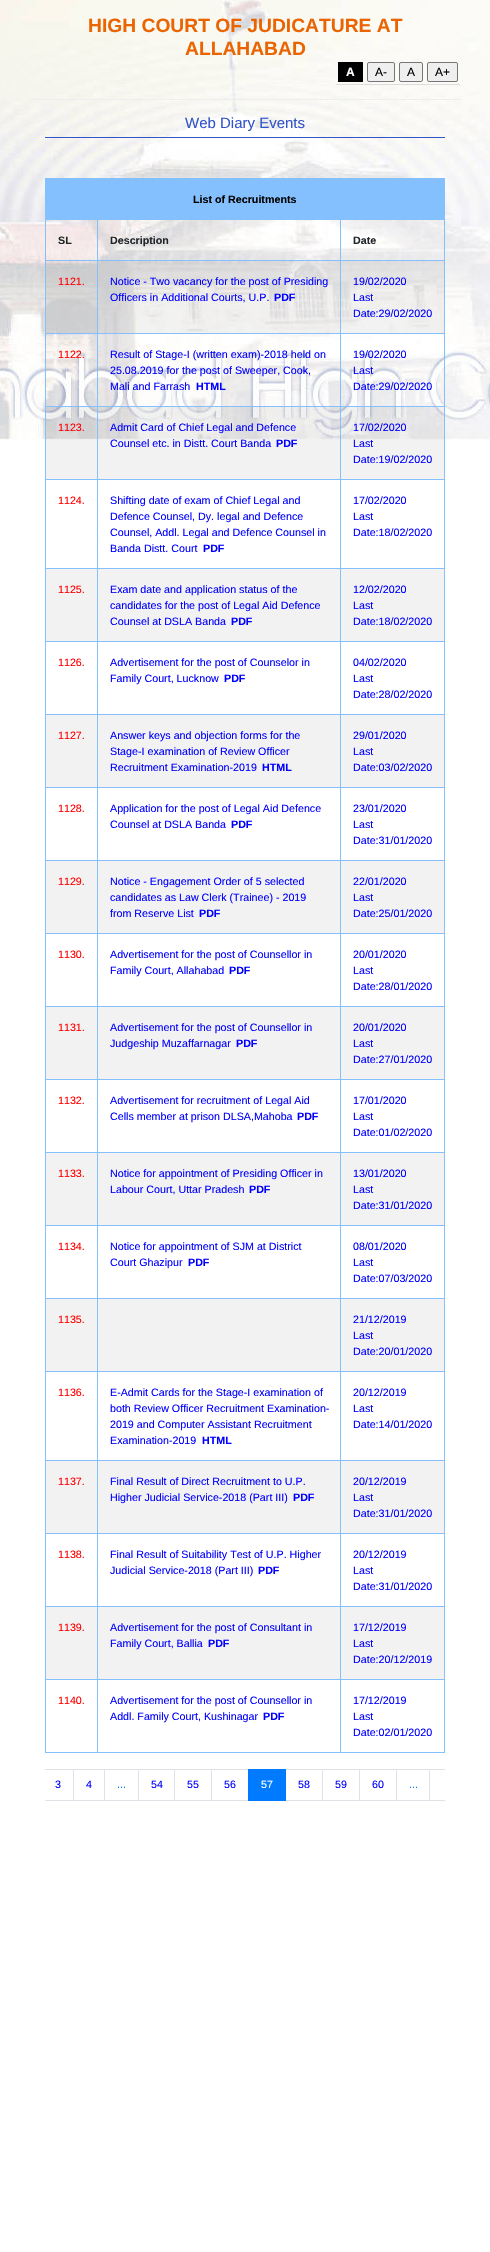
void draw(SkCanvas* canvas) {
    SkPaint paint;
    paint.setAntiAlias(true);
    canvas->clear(0xFFFFFFFF);
    canvas->drawImageRect(SkImages::DeferredFromEncodedData(SkData::MakeFromFileName("img1.png")), SkRect::MakeXYWH(0, 0, 490, 440), SkSamplingOptions());
    paint.setColor(0xFFEEEEEE);
    canvas->drawRect(SkRect::MakeXYWH(30, 99, 430, 1), paint);
    SkFont font1(fontMgr->matchFamilyStyle("Liberation Sans", SkFontStyle::Bold()), 19.25f);
    font1.setSubpixel(true);
    paint.setColor(0xFFEB6402);
    canvas->drawString("HIGH COURT OF JUDICATURE AT", 88, 32, font1, paint);
    canvas->drawString("ALLAHABAD", 185, 55, font1, paint);
    paint.setColor(0xFFDDDDDD);
    canvas->drawRect(SkRect::MakeXYWH(336, 84, 124, 1), paint);
    paint.setColor(0xFF000000);
    canvas->drawRect(SkRect::MakeXYWH(338, 62, 25, 20), paint);
    SkFont font2(fontMgr->matchFamilyStyle("Liberation Sans", SkFontStyle::Bold()), 12);
    font2.setSubpixel(true);
    paint.setColor(0xFFFFFFFF);
    canvas->drawString("A", 346, 76, font2, paint);
    paint.setColor(0xFFEFEFEF);
    canvas->drawRoundRect(SkRect::MakeXYWH(367.5f, 62.5f, 27, 19), 1.5f, 1.5f, paint);
    paint.setStyle(SkPaint::kStroke_Style);
    paint.setStrokeWidth(1);
    paint.setColor(0xFF767676);
    canvas->drawRoundRect(SkRect::MakeXYWH(367.5f, 62.5f, 27, 19), 1.5f, 1.5f, paint);
    SkFont font3(fontMgr->matchFamilyStyle("Liberation Sans", SkFontStyle::Normal()), 12);
    font3.setSubpixel(true);
    paint.setStyle(SkPaint::kFill_Style);
    paint.setColor(0xFF000000);
    canvas->drawString("A-", 375, 76, font3, paint);
    paint.setColor(0xFFEFEFEF);
    canvas->drawRoundRect(SkRect::MakeXYWH(399.5f, 62.5f, 23, 19), 1.5f, 1.5f, paint);
    paint.setStyle(SkPaint::kStroke_Style);
    paint.setColor(0xFF767676);
    canvas->drawRoundRect(SkRect::MakeXYWH(399.5f, 62.5f, 23, 19), 1.5f, 1.5f, paint);
    paint.setStyle(SkPaint::kFill_Style);
    paint.setColor(0xFF000000);
    canvas->drawString("A", 407, 76, font3, paint);
    paint.setColor(0xFFEFEFEF);
    canvas->drawRoundRect(SkRect::MakeXYWH(427.5f, 62.5f, 30, 19), 1.5f, 1.5f, paint);
    paint.setStyle(SkPaint::kStroke_Style);
    paint.setColor(0xFF767676);
    canvas->drawRoundRect(SkRect::MakeXYWH(427.5f, 62.5f, 30, 19), 1.5f, 1.5f, paint);
    paint.setStyle(SkPaint::kFill_Style);
    paint.setColor(0xFF000000);
    canvas->drawString("A+", 435, 76, font3, paint);
    paint.setColor(0xFF3254C9);
    canvas->drawRect(SkRect::MakeXYWH(45, 137, 400, 1), paint);
    SkFont font4(fontMgr->matchFamilyStyle("Liberation Sans", SkFontStyle::Normal()), 15);
    font4.setSubpixel(true);
    canvas->drawString("Web Diary Events", 185, 128, font4, paint);
    paint.setColor(0xFF84C0FD);
    canvas->drawRect(SkRect::MakeXYWH(46, 179, 399, 41), paint);
    canvas->drawRect(SkRect::MakeXYWH(45, 178, 400, 1), paint);
    canvas->drawRect(SkRect::MakeXYWH(340, 260, 105, 1), paint);
    paint.setColor(0x0D000000);
    canvas->drawRect(SkRect::MakeXYWH(46, 261, 398, 72), paint);
    paint.setColor(0xFF84C0FD);
    canvas->drawRect(SkRect::MakeXYWH(340, 333, 105, 1), paint);
    canvas->drawRect(SkRect::MakeXYWH(340, 406, 105, 1), paint);
    paint.setColor(0x0D000000);
    canvas->drawRect(SkRect::MakeXYWH(46, 407, 398, 72), paint);
    paint.setColor(0xFF84C0FD);
    canvas->drawRect(SkRect::MakeXYWH(340, 479, 105, 1), paint);
    canvas->drawRect(SkRect::MakeXYWH(340, 568, 105, 1), paint);
    paint.setColor(0xFFF2F2F2);
    canvas->drawRect(SkRect::MakeXYWH(46, 569, 398, 72), paint);
    paint.setColor(0xFF84C0FD);
    canvas->drawRect(SkRect::MakeXYWH(340, 641, 105, 1), paint);
    canvas->drawRect(SkRect::MakeXYWH(340, 714, 105, 1), paint);
    paint.setColor(0xFFF2F2F2);
    canvas->drawRect(SkRect::MakeXYWH(46, 715, 398, 72), paint);
    paint.setColor(0xFF84C0FD);
    canvas->drawRect(SkRect::MakeXYWH(340, 787, 105, 1), paint);
    canvas->drawRect(SkRect::MakeXYWH(340, 860, 105, 1), paint);
    paint.setColor(0xFFF2F2F2);
    canvas->drawRect(SkRect::MakeXYWH(46, 861, 398, 72), paint);
    paint.setColor(0xFF84C0FD);
    canvas->drawRect(SkRect::MakeXYWH(340, 933, 105, 1), paint);
    canvas->drawRect(SkRect::MakeXYWH(340, 1006, 105, 1), paint);
    paint.setColor(0xFFF2F2F2);
    canvas->drawRect(SkRect::MakeXYWH(46, 1007, 398, 72), paint);
    paint.setColor(0xFF84C0FD);
    canvas->drawRect(SkRect::MakeXYWH(340, 1079, 105, 1), paint);
    canvas->drawRect(SkRect::MakeXYWH(340, 1152, 105, 1), paint);
    paint.setColor(0xFFF2F2F2);
    canvas->drawRect(SkRect::MakeXYWH(46, 1153, 398, 72), paint);
    paint.setColor(0xFF84C0FD);
    canvas->drawRect(SkRect::MakeXYWH(340, 1225, 105, 1), paint);
    canvas->drawRect(SkRect::MakeXYWH(340, 1298, 105, 1), paint);
    paint.setColor(0xFFF2F2F2);
    canvas->drawRect(SkRect::MakeXYWH(46, 1299, 398, 72), paint);
    paint.setColor(0xFF84C0FD);
    canvas->drawRect(SkRect::MakeXYWH(340, 1371, 105, 1), paint);
    canvas->drawRect(SkRect::MakeXYWH(340, 1460, 105, 1), paint);
    paint.setColor(0xFFF2F2F2);
    canvas->drawRect(SkRect::MakeXYWH(46, 1461, 398, 72), paint);
    paint.setColor(0xFF84C0FD);
    canvas->drawRect(SkRect::MakeXYWH(340, 1533, 105, 1), paint);
    canvas->drawRect(SkRect::MakeXYWH(340, 1606, 105, 1), paint);
    paint.setColor(0xFFF2F2F2);
    canvas->drawRect(SkRect::MakeXYWH(46, 1607, 398, 72), paint);
    paint.setColor(0xFF84C0FD);
    canvas->drawRect(SkRect::MakeXYWH(340, 1679, 105, 1), paint);
    canvas->drawRect(SkRect::MakeXYWH(444, 1679, 1, 74), paint);
    canvas->drawRect(SkRect::MakeXYWH(340, 1752, 105, 1), paint);
    canvas->drawRect(SkRect::MakeXYWH(340, 1679, 1, 74), paint);
    canvas->drawRect(SkRect::MakeXYWH(97, 1679, 244, 1), paint);
    canvas->drawRect(SkRect::MakeXYWH(340, 1606, 1, 74), paint);
    canvas->drawRect(SkRect::MakeXYWH(97, 1606, 244, 1), paint);
    canvas->drawRect(SkRect::MakeXYWH(340, 1533, 1, 74), paint);
    canvas->drawRect(SkRect::MakeXYWH(97, 1533, 244, 1), paint);
    canvas->drawRect(SkRect::MakeXYWH(340, 1460, 1, 74), paint);
    canvas->drawRect(SkRect::MakeXYWH(97, 1460, 244, 1), paint);
    canvas->drawRect(SkRect::MakeXYWH(340, 1371, 1, 90), paint);
    canvas->drawRect(SkRect::MakeXYWH(97, 1371, 244, 1), paint);
    canvas->drawRect(SkRect::MakeXYWH(340, 1298, 1, 74), paint);
    canvas->drawRect(SkRect::MakeXYWH(97, 1298, 244, 1), paint);
    canvas->drawRect(SkRect::MakeXYWH(340, 1225, 1, 74), paint);
    canvas->drawRect(SkRect::MakeXYWH(97, 1225, 244, 1), paint);
    canvas->drawRect(SkRect::MakeXYWH(340, 1152, 1, 74), paint);
    canvas->drawRect(SkRect::MakeXYWH(97, 1152, 244, 1), paint);
    canvas->drawRect(SkRect::MakeXYWH(340, 1079, 1, 74), paint);
    canvas->drawRect(SkRect::MakeXYWH(97, 1079, 244, 1), paint);
    canvas->drawRect(SkRect::MakeXYWH(340, 1006, 1, 74), paint);
    canvas->drawRect(SkRect::MakeXYWH(97, 1006, 244, 1), paint);
    canvas->drawRect(SkRect::MakeXYWH(340, 933, 1, 74), paint);
    canvas->drawRect(SkRect::MakeXYWH(97, 933, 244, 1), paint);
    canvas->drawRect(SkRect::MakeXYWH(340, 860, 1, 74), paint);
    canvas->drawRect(SkRect::MakeXYWH(97, 860, 244, 1), paint);
    canvas->drawRect(SkRect::MakeXYWH(340, 787, 1, 74), paint);
    canvas->drawRect(SkRect::MakeXYWH(97, 787, 244, 1), paint);
    canvas->drawRect(SkRect::MakeXYWH(340, 714, 1, 74), paint);
    canvas->drawRect(SkRect::MakeXYWH(97, 714, 244, 1), paint);
    canvas->drawRect(SkRect::MakeXYWH(340, 641, 1, 74), paint);
    canvas->drawRect(SkRect::MakeXYWH(97, 641, 244, 1), paint);
    canvas->drawRect(SkRect::MakeXYWH(340, 568, 1, 74), paint);
    canvas->drawRect(SkRect::MakeXYWH(97, 568, 244, 1), paint);
    canvas->drawRect(SkRect::MakeXYWH(340, 479, 1, 90), paint);
    canvas->drawRect(SkRect::MakeXYWH(97, 479, 244, 1), paint);
    canvas->drawRect(SkRect::MakeXYWH(340, 406, 1, 74), paint);
    canvas->drawRect(SkRect::MakeXYWH(97, 406, 244, 1), paint);
    canvas->drawRect(SkRect::MakeXYWH(340, 333, 1, 74), paint);
    canvas->drawRect(SkRect::MakeXYWH(97, 333, 244, 1), paint);
    canvas->drawRect(SkRect::MakeXYWH(340, 260, 1, 74), paint);
    canvas->drawRect(SkRect::MakeXYWH(97, 260, 244, 1), paint);
    canvas->drawRect(SkRect::MakeXYWH(97, 1752, 244, 1), paint);
    canvas->drawRect(SkRect::MakeXYWH(97, 1679, 1, 74), paint);
    canvas->drawRect(SkRect::MakeXYWH(45, 1679, 53, 1), paint);
    canvas->drawRect(SkRect::MakeXYWH(97, 1606, 1, 74), paint);
    canvas->drawRect(SkRect::MakeXYWH(45, 1606, 53, 1), paint);
    canvas->drawRect(SkRect::MakeXYWH(97, 1533, 1, 74), paint);
    canvas->drawRect(SkRect::MakeXYWH(45, 1533, 53, 1), paint);
    canvas->drawRect(SkRect::MakeXYWH(97, 1460, 1, 74), paint);
    canvas->drawRect(SkRect::MakeXYWH(45, 1460, 53, 1), paint);
    canvas->drawRect(SkRect::MakeXYWH(97, 1371, 1, 90), paint);
    canvas->drawRect(SkRect::MakeXYWH(45, 1371, 53, 1), paint);
    canvas->drawRect(SkRect::MakeXYWH(97, 1298, 1, 74), paint);
    canvas->drawRect(SkRect::MakeXYWH(45, 1298, 53, 1), paint);
    canvas->drawRect(SkRect::MakeXYWH(97, 1225, 1, 74), paint);
    canvas->drawRect(SkRect::MakeXYWH(45, 1225, 53, 1), paint);
    canvas->drawRect(SkRect::MakeXYWH(97, 1152, 1, 74), paint);
    canvas->drawRect(SkRect::MakeXYWH(45, 1152, 53, 1), paint);
    canvas->drawRect(SkRect::MakeXYWH(97, 1079, 1, 74), paint);
    canvas->drawRect(SkRect::MakeXYWH(45, 1079, 53, 1), paint);
    canvas->drawRect(SkRect::MakeXYWH(97, 1006, 1, 74), paint);
    canvas->drawRect(SkRect::MakeXYWH(45, 1006, 53, 1), paint);
    canvas->drawRect(SkRect::MakeXYWH(97, 933, 1, 74), paint);
    canvas->drawRect(SkRect::MakeXYWH(45, 933, 53, 1), paint);
    canvas->drawRect(SkRect::MakeXYWH(97, 860, 1, 74), paint);
    canvas->drawRect(SkRect::MakeXYWH(45, 860, 53, 1), paint);
    canvas->drawRect(SkRect::MakeXYWH(97, 787, 1, 74), paint);
    canvas->drawRect(SkRect::MakeXYWH(45, 787, 53, 1), paint);
    canvas->drawRect(SkRect::MakeXYWH(97, 714, 1, 74), paint);
    canvas->drawRect(SkRect::MakeXYWH(45, 714, 53, 1), paint);
    canvas->drawRect(SkRect::MakeXYWH(97, 641, 1, 74), paint);
    canvas->drawRect(SkRect::MakeXYWH(45, 641, 53, 1), paint);
    canvas->drawRect(SkRect::MakeXYWH(97, 568, 1, 74), paint);
    canvas->drawRect(SkRect::MakeXYWH(45, 568, 53, 1), paint);
    canvas->drawRect(SkRect::MakeXYWH(97, 479, 1, 90), paint);
    canvas->drawRect(SkRect::MakeXYWH(45, 479, 53, 1), paint);
    canvas->drawRect(SkRect::MakeXYWH(97, 406, 1, 74), paint);
    canvas->drawRect(SkRect::MakeXYWH(45, 406, 53, 1), paint);
    canvas->drawRect(SkRect::MakeXYWH(97, 333, 1, 74), paint);
    canvas->drawRect(SkRect::MakeXYWH(45, 333, 53, 1), paint);
    canvas->drawRect(SkRect::MakeXYWH(97, 260, 1, 74), paint);
    canvas->drawRect(SkRect::MakeXYWH(45, 260, 53, 1), paint);
    canvas->drawRect(SkRect::MakeXYWH(45, 1752, 53, 1), paint);
    canvas->drawRect(SkRect::MakeXYWH(45, 1679, 1, 74), paint);
    canvas->drawRect(SkRect::MakeXYWH(45, 1606, 1, 74), paint);
    canvas->drawRect(SkRect::MakeXYWH(45, 1533, 1, 74), paint);
    canvas->drawRect(SkRect::MakeXYWH(45, 1460, 1, 74), paint);
    canvas->drawRect(SkRect::MakeXYWH(45, 1371, 1, 90), paint);
    canvas->drawRect(SkRect::MakeXYWH(45, 1298, 1, 74), paint);
    canvas->drawRect(SkRect::MakeXYWH(45, 1225, 1, 74), paint);
    canvas->drawRect(SkRect::MakeXYWH(45, 1152, 1, 74), paint);
    canvas->drawRect(SkRect::MakeXYWH(45, 1079, 1, 74), paint);
    canvas->drawRect(SkRect::MakeXYWH(45, 1006, 1, 74), paint);
    canvas->drawRect(SkRect::MakeXYWH(45, 933, 1, 74), paint);
    canvas->drawRect(SkRect::MakeXYWH(45, 860, 1, 74), paint);
    canvas->drawRect(SkRect::MakeXYWH(45, 787, 1, 74), paint);
    canvas->drawRect(SkRect::MakeXYWH(45, 714, 1, 74), paint);
    canvas->drawRect(SkRect::MakeXYWH(45, 641, 1, 74), paint);
    canvas->drawRect(SkRect::MakeXYWH(45, 568, 1, 74), paint);
    canvas->drawRect(SkRect::MakeXYWH(45, 479, 1, 90), paint);
    canvas->drawRect(SkRect::MakeXYWH(45, 406, 1, 74), paint);
    canvas->drawRect(SkRect::MakeXYWH(45, 333, 1, 74), paint);
    canvas->drawRect(SkRect::MakeXYWH(45, 260, 1, 74), paint);
    canvas->drawRect(SkRect::MakeXYWH(45, 219, 1, 42), paint);
    canvas->drawRect(SkRect::MakeXYWH(45, 178, 1, 42), paint);
    SkFont font5(fontMgr->matchFamilyStyle("Liberation Sans", SkFontStyle::Bold()), 10.7f);
    font5.setSubpixel(true);
    paint.setColor(0xFF000000);
    canvas->drawString("List of Recruitments", 193, 203, font5, paint);
    paint.setColor(0xFF212529);
    canvas->drawString("SL", 58, 244, font5, paint);
    paint.setColor(0xFF84C0FD);
    canvas->drawRect(SkRect::MakeXYWH(97, 219, 1, 42), paint);
    paint.setColor(0xFF212529);
    canvas->drawString("Description", 110, 244, font5, paint);
    paint.setColor(0xFF84C0FD);
    canvas->drawRect(SkRect::MakeXYWH(340, 219, 1, 42), paint);
    paint.setColor(0xFF212529);
    canvas->drawString("Date", 353, 244, font5, paint);
    SkFont font6(fontMgr->matchFamilyStyle("Liberation Sans", SkFontStyle::Normal()), 10.7f);
    font6.setSubpixel(true);
    paint.setColor(0xFFFF0000);
    canvas->drawString("1121.", 58, 285, font6, paint);
    paint.setColor(0xFF0000FF);
    canvas->drawString("Notice - Two vacancy for the post of Presiding", 110, 285, font6, paint);
    canvas->drawString("Officers in Additional Courts, U.P.", 110, 301, font6, paint);
    canvas->drawString("PDF", 274, 301, font5, paint);
    paint.setColor(0xFF84C0FD);
    canvas->drawRect(SkRect::MakeXYWH(444, 1606, 1, 74), paint);
    canvas->drawRect(SkRect::MakeXYWH(444, 1533, 1, 74), paint);
    canvas->drawRect(SkRect::MakeXYWH(444, 1460, 1, 74), paint);
    canvas->drawRect(SkRect::MakeXYWH(444, 1371, 1, 90), paint);
    canvas->drawRect(SkRect::MakeXYWH(444, 1298, 1, 74), paint);
    canvas->drawRect(SkRect::MakeXYWH(444, 1225, 1, 74), paint);
    canvas->drawRect(SkRect::MakeXYWH(444, 1152, 1, 74), paint);
    canvas->drawRect(SkRect::MakeXYWH(444, 1079, 1, 74), paint);
    canvas->drawRect(SkRect::MakeXYWH(444, 1006, 1, 74), paint);
    canvas->drawRect(SkRect::MakeXYWH(444, 933, 1, 74), paint);
    canvas->drawRect(SkRect::MakeXYWH(444, 860, 1, 74), paint);
    canvas->drawRect(SkRect::MakeXYWH(444, 787, 1, 74), paint);
    canvas->drawRect(SkRect::MakeXYWH(444, 714, 1, 74), paint);
    canvas->drawRect(SkRect::MakeXYWH(444, 641, 1, 74), paint);
    canvas->drawRect(SkRect::MakeXYWH(444, 568, 1, 74), paint);
    canvas->drawRect(SkRect::MakeXYWH(444, 479, 1, 90), paint);
    canvas->drawRect(SkRect::MakeXYWH(444, 406, 1, 74), paint);
    canvas->drawRect(SkRect::MakeXYWH(444, 333, 1, 74), paint);
    canvas->drawRect(SkRect::MakeXYWH(444, 219, 1, 115), paint);
    paint.setColor(0xFF0000FF);
    canvas->drawString("19/02/2020", 353, 285, font6, paint);
    canvas->drawString("Last", 353, 301, font6, paint);
    canvas->drawString("Date:29/02/2020", 353, 317, font6, paint);
    paint.setColor(0xFFFF0000);
    canvas->drawString("1122.", 58, 358, font6, paint);
    paint.setColor(0xFF0000FF);
    canvas->drawString("Result of Stage-I (written exam)-2018 held on", 110, 358, font6, paint);
    canvas->drawString("25.08.2019 for the post of Sweeper, Cook,", 110, 374, font6, paint);
    canvas->drawString("Mali and Farrash", 110, 390, font6, paint);
    canvas->drawString("HTML", 196, 390, font5, paint);
    canvas->drawString("19/02/2020", 353, 358, font6, paint);
    canvas->drawString("Last", 353, 374, font6, paint);
    canvas->drawString("Date:29/02/2020", 353, 390, font6, paint);
    paint.setColor(0xFFFF0000);
    canvas->drawString("1123.", 58, 431, font6, paint);
    paint.setColor(0xFF0000FF);
    canvas->drawString("Admit Card of Chief Legal and Defence", 110, 431, font6, paint);
    canvas->drawString("Counsel etc. in Distt. Court Banda", 110, 447, font6, paint);
    canvas->drawString("PDF", 276, 447, font5, paint);
    canvas->drawString("17/02/2020", 353, 431, font6, paint);
    canvas->drawString("Last", 353, 447, font6, paint);
    canvas->drawString("Date:19/02/2020", 353, 463, font6, paint);
    paint.setColor(0xFFFF0000);
    canvas->drawString("1124.", 58, 504, font6, paint);
    paint.setColor(0xFF0000FF);
    canvas->drawString("Shifting date of exam of Chief Legal and", 110, 504, font6, paint);
    canvas->drawString("Defence Counsel, Dy. legal and Defence", 110, 520, font6, paint);
    canvas->drawString("Counsel, Addl. Legal and Defence Counsel in", 110, 536, font6, paint);
    canvas->drawString("Banda Distt. Court", 110, 552, font6, paint);
    canvas->drawString("PDF", 203, 552, font5, paint);
    canvas->drawString("17/02/2020", 353, 504, font6, paint);
    canvas->drawString("Last", 353, 520, font6, paint);
    canvas->drawString("Date:18/02/2020", 353, 536, font6, paint);
    paint.setColor(0xFFFF0000);
    canvas->drawString("1125.", 58, 593, font6, paint);
    paint.setColor(0xFF0000FF);
    canvas->drawString("Exam date and application status of the", 110, 593, font6, paint);
    canvas->drawString("candidates for the post of Legal Aid Defence", 110, 609, font6, paint);
    canvas->drawString("Counsel at DSLA Banda", 110, 625, font6, paint);
    canvas->drawString("PDF", 231, 625, font5, paint);
    canvas->drawString("12/02/2020", 353, 593, font6, paint);
    canvas->drawString("Last", 353, 609, font6, paint);
    canvas->drawString("Date:18/02/2020", 353, 625, font6, paint);
    paint.setColor(0xFFFF0000);
    canvas->drawString("1126.", 58, 666, font6, paint);
    paint.setColor(0xFF0000FF);
    canvas->drawString("Advertisement for the post of Counselor in", 110, 666, font6, paint);
    canvas->drawString("Family Court, Lucknow", 110, 682, font6, paint);
    canvas->drawString("PDF", 224, 682, font5, paint);
    canvas->drawString("04/02/2020", 353, 666, font6, paint);
    canvas->drawString("Last", 353, 682, font6, paint);
    canvas->drawString("Date:28/02/2020", 353, 698, font6, paint);
    paint.setColor(0xFFFF0000);
    canvas->drawString("1127.", 58, 739, font6, paint);
    paint.setColor(0xFF0000FF);
    canvas->drawString("Answer keys and objection forms for the", 110, 739, font6, paint);
    canvas->drawString("Stage-I examination of Review Officer", 110, 755, font6, paint);
    canvas->drawString("Recruitment Examination-2019", 110, 771, font6, paint);
    canvas->drawString("HTML", 262, 771, font5, paint);
    canvas->drawString("29/01/2020", 353, 739, font6, paint);
    canvas->drawString("Last", 353, 755, font6, paint);
    canvas->drawString("Date:03/02/2020", 353, 771, font6, paint);
    paint.setColor(0xFFFF0000);
    canvas->drawString("1128.", 58, 812, font6, paint);
    paint.setColor(0xFF0000FF);
    canvas->drawString("Application for the post of Legal Aid Defence", 110, 812, font6, paint);
    canvas->drawString("Counsel at DSLA Banda", 110, 828, font6, paint);
    canvas->drawString("PDF", 231, 828, font5, paint);
    canvas->drawString("23/01/2020", 353, 812, font6, paint);
    canvas->drawString("Last", 353, 828, font6, paint);
    canvas->drawString("Date:31/01/2020", 353, 844, font6, paint);
    paint.setColor(0xFFFF0000);
    canvas->drawString("1129.", 58, 885, font6, paint);
    paint.setColor(0xFF0000FF);
    canvas->drawString("Notice - Engagement Order of 5 selected", 110, 885, font6, paint);
    canvas->drawString("candidates as Law Clerk (Trainee) - 2019", 110, 901, font6, paint);
    canvas->drawString("from Reserve List", 110, 917, font6, paint);
    canvas->drawString("PDF", 199, 917, font5, paint);
    canvas->drawString("22/01/2020", 353, 885, font6, paint);
    canvas->drawString("Last", 353, 901, font6, paint);
    canvas->drawString("Date:25/01/2020", 353, 917, font6, paint);
    paint.setColor(0xFFFF0000);
    canvas->drawString("1130.", 58, 958, font6, paint);
    paint.setColor(0xFF0000FF);
    canvas->drawString("Advertisement for the post of Counsellor in", 110, 958, font6, paint);
    canvas->drawString("Family Court, Allahabad", 110, 974, font6, paint);
    canvas->drawString("PDF", 229, 974, font5, paint);
    canvas->drawString("20/01/2020", 353, 958, font6, paint);
    canvas->drawString("Last", 353, 974, font6, paint);
    canvas->drawString("Date:28/01/2020", 353, 990, font6, paint);
    paint.setColor(0xFFFF0000);
    canvas->drawString("1131.", 58, 1031, font6, paint);
    paint.setColor(0xFF0000FF);
    canvas->drawString("Advertisement for the post of Counsellor in", 110, 1031, font6, paint);
    canvas->drawString("Judgeship Muzaffarnagar", 110, 1047, font6, paint);
    canvas->drawString("PDF", 236, 1047, font5, paint);
    canvas->drawString("20/01/2020", 353, 1031, font6, paint);
    canvas->drawString("Last", 353, 1047, font6, paint);
    canvas->drawString("Date:27/01/2020", 353, 1063, font6, paint);
    paint.setColor(0xFFFF0000);
    canvas->drawString("1132.", 58, 1104, font6, paint);
    paint.setColor(0xFF0000FF);
    canvas->drawString("Advertisement for recruitment of Legal Aid", 110, 1104, font6, paint);
    canvas->drawString("Cells member at prison DLSA,Mahoba", 110, 1120, font6, paint);
    canvas->drawString("PDF", 297, 1120, font5, paint);
    canvas->drawString("17/01/2020", 353, 1104, font6, paint);
    canvas->drawString("Last", 353, 1120, font6, paint);
    canvas->drawString("Date:01/02/2020", 353, 1136, font6, paint);
    paint.setColor(0xFFFF0000);
    canvas->drawString("1133.", 58, 1177, font6, paint);
    paint.setColor(0xFF0000FF);
    canvas->drawString("Notice for appointment of Presiding Officer in", 110, 1177, font6, paint);
    canvas->drawString("Labour Court, Uttar Pradesh", 110, 1193, font6, paint);
    canvas->drawString("PDF", 249, 1193, font5, paint);
    canvas->drawString("13/01/2020", 353, 1177, font6, paint);
    canvas->drawString("Last", 353, 1193, font6, paint);
    canvas->drawString("Date:31/01/2020", 353, 1209, font6, paint);
    paint.setColor(0xFFFF0000);
    canvas->drawString("1134.", 58, 1250, font6, paint);
    paint.setColor(0xFF0000FF);
    canvas->drawString("Notice for appointment of SJM at District", 110, 1250, font6, paint);
    canvas->drawString("Court Ghazipur", 110, 1266, font6, paint);
    canvas->drawString("PDF", 188, 1266, font5, paint);
    canvas->drawString("08/01/2020", 353, 1250, font6, paint);
    canvas->drawString("Last", 353, 1266, font6, paint);
    canvas->drawString("Date:07/03/2020", 353, 1282, font6, paint);
    paint.setColor(0xFFFF0000);
    canvas->drawString("1135.", 58, 1323, font6, paint);
    paint.setColor(0xFF0000FF);
    canvas->drawString("21/12/2019", 353, 1323, font6, paint);
    canvas->drawString("Last", 353, 1339, font6, paint);
    canvas->drawString("Date:20/01/2020", 353, 1355, font6, paint);
    paint.setColor(0xFFFF0000);
    canvas->drawString("1136.", 58, 1396, font6, paint);
    paint.setColor(0xFF0000FF);
    canvas->drawString("E-Admit Cards for the Stage-I examination of", 110, 1396, font6, paint);
    canvas->drawString("both Review Officer Recruitment Examination-", 110, 1412, font6, paint);
    canvas->drawString("2019 and Computer Assistant Recruitment", 110, 1428, font6, paint);
    canvas->drawString("Examination-2019", 110, 1444, font6, paint);
    canvas->drawString("HTML", 202, 1444, font5, paint);
    canvas->drawString("20/12/2019", 353, 1396, font6, paint);
    canvas->drawString("Last", 353, 1412, font6, paint);
    canvas->drawString("Date:14/01/2020", 353, 1428, font6, paint);
    paint.setColor(0xFFFF0000);
    canvas->drawString("1137.", 58, 1485, font6, paint);
    paint.setColor(0xFF0000FF);
    canvas->drawString("Final Result of Direct Recruitment to U.P.", 110, 1485, font6, paint);
    canvas->drawString("Higher Judicial Service-2018 (Part III)", 110, 1501, font6, paint);
    canvas->drawString("PDF", 293, 1501, font5, paint);
    canvas->drawString("20/12/2019", 353, 1485, font6, paint);
    canvas->drawString("Last", 353, 1501, font6, paint);
    canvas->drawString("Date:31/01/2020", 353, 1517, font6, paint);
    paint.setColor(0xFFFF0000);
    canvas->drawString("1138.", 58, 1558, font6, paint);
    paint.setColor(0xFF0000FF);
    canvas->drawString("Final Result of Suitability Test of U.P. Higher", 110, 1558, font6, paint);
    canvas->drawString("Judicial Service-2018 (Part III)", 110, 1574, font6, paint);
    canvas->drawString("PDF", 258, 1574, font5, paint);
    canvas->drawString("20/12/2019", 353, 1558, font6, paint);
    canvas->drawString("Last", 353, 1574, font6, paint);
    canvas->drawString("Date:31/01/2020", 353, 1590, font6, paint);
    paint.setColor(0xFFFF0000);
    canvas->drawString("1139.", 58, 1631, font6, paint);
    paint.setColor(0xFF0000FF);
    canvas->drawString("Advertisement for the post of Consultant in", 110, 1631, font6, paint);
    canvas->drawString("Family Court, Ballia", 110, 1647, font6, paint);
    canvas->drawString("PDF", 208, 1647, font5, paint);
    canvas->drawString("17/12/2019", 353, 1631, font6, paint);
    canvas->drawString("Last", 353, 1647, font6, paint);
    canvas->drawString("Date:20/12/2019", 353, 1663, font6, paint);
    paint.setColor(0xFFFF0000);
    canvas->drawString("1140.", 58, 1704, font6, paint);
    paint.setColor(0xFF0000FF);
    canvas->drawString("Advertisement for the post of Counsellor in", 110, 1704, font6, paint);
    canvas->drawString("Addl. Family Court, Kushinagar", 110, 1720, font6, paint);
    canvas->drawString("PDF", 263, 1720, font5, paint);
    canvas->drawString("17/12/2019", 353, 1704, font6, paint);
    canvas->drawString("Last", 353, 1720, font6, paint);
    canvas->drawString("Date:02/01/2020", 353, 1736, font6, paint);
    canvas->save();
    canvas->clipRect(SkRect::MakeXYWH(45, 1769, 400, 48));
    paint.setStyle(SkPaint::kStroke_Style);
    paint.setColor(0xFFDEE2E6);
    canvas->drawRect(SkRect::MakeXYWH(42.5f, 1769.5f, 31, 31), paint);
    canvas->restore();
    paint.setStyle(SkPaint::kFill_Style);
    paint.setColor(0xFF0000FF);
    canvas->drawString("3", 55, 1788, font6, paint);
    paint.setStyle(SkPaint::kStroke_Style);
    paint.setColor(0xFFDEE2E6);
    canvas->drawRect(SkRect::MakeXYWH(73.5f, 1769.5f, 31, 31), paint);
    paint.setStyle(SkPaint::kFill_Style);
    paint.setColor(0xFF0000FF);
    canvas->drawString("4", 86, 1788, font6, paint);
    paint.setStyle(SkPaint::kStroke_Style);
    paint.setColor(0xFFDEE2E6);
    canvas->drawRect(SkRect::MakeXYWH(104.5f, 1769.5f, 34, 31), paint);
    paint.setStyle(SkPaint::kFill_Style);
    paint.setColor(0xFF007BFF);
    canvas->drawString("...", 117, 1788, font6, paint);
    paint.setStyle(SkPaint::kStroke_Style);
    paint.setColor(0xFFDEE2E6);
    canvas->drawRect(SkRect::MakeXYWH(138.5f, 1769.5f, 36, 31), paint);
    paint.setStyle(SkPaint::kFill_Style);
    paint.setColor(0xFF0000FF);
    canvas->drawString("54", 151, 1788, font6, paint);
    paint.setStyle(SkPaint::kStroke_Style);
    paint.setColor(0xFFDEE2E6);
    canvas->drawRect(SkRect::MakeXYWH(174.5f, 1769.5f, 37, 31), paint);
    paint.setStyle(SkPaint::kFill_Style);
    paint.setColor(0xFF0000FF);
    canvas->drawString("55", 187, 1788, font6, paint);
    paint.setStyle(SkPaint::kStroke_Style);
    paint.setColor(0xFFDEE2E6);
    canvas->drawRect(SkRect::MakeXYWH(211.5f, 1769.5f, 37, 31), paint);
    paint.setStyle(SkPaint::kFill_Style);
    paint.setColor(0xFF0000FF);
    canvas->drawString("56", 224, 1788, font6, paint);
    paint.setStyle(SkPaint::kStroke_Style);
    paint.setColor(0xFFDEE2E6);
    canvas->drawRect(SkRect::MakeXYWH(285.5f, 1769.5f, 37, 31), paint);
    paint.setStyle(SkPaint::kFill_Style);
    paint.setColor(0xFF007BFF);
    canvas->drawRect(SkRect::MakeXYWH(248, 1769, 38, 32), paint);
    paint.setColor(0xFFFFFFFF);
    canvas->drawString("57", 261, 1788, font6, paint);
    paint.setColor(0xFF0000FF);
    canvas->drawString("58", 298, 1788, font6, paint);
    paint.setStyle(SkPaint::kStroke_Style);
    paint.setColor(0xFFDEE2E6);
    canvas->drawRect(SkRect::MakeXYWH(322.5f, 1769.5f, 37, 31), paint);
    paint.setStyle(SkPaint::kFill_Style);
    paint.setColor(0xFF0000FF);
    canvas->drawString("59", 335, 1788, font6, paint);
    paint.setStyle(SkPaint::kStroke_Style);
    paint.setColor(0xFFDEE2E6);
    canvas->drawRect(SkRect::MakeXYWH(359.5f, 1769.5f, 37, 31), paint);
    paint.setStyle(SkPaint::kFill_Style);
    paint.setColor(0xFF0000FF);
    canvas->drawString("60", 372, 1788, font6, paint);
    paint.setStyle(SkPaint::kStroke_Style);
    paint.setColor(0xFFDEE2E6);
    canvas->drawRect(SkRect::MakeXYWH(396.5f, 1769.5f, 33, 31), paint);
    paint.setStyle(SkPaint::kFill_Style);
    paint.setColor(0xFF007BFF);
    canvas->drawString("...", 409, 1788, font6, paint);
    canvas->save();
    canvas->clipRect(SkRect::MakeXYWH(45, 1769, 400, 48));
    paint.setStyle(SkPaint::kStroke_Style);
    paint.setColor(0xFFDEE2E6);
    canvas->drawRect(SkRect::MakeXYWH(429.5f, 1769.5f, 37, 31), paint);
    canvas->restore();
}
